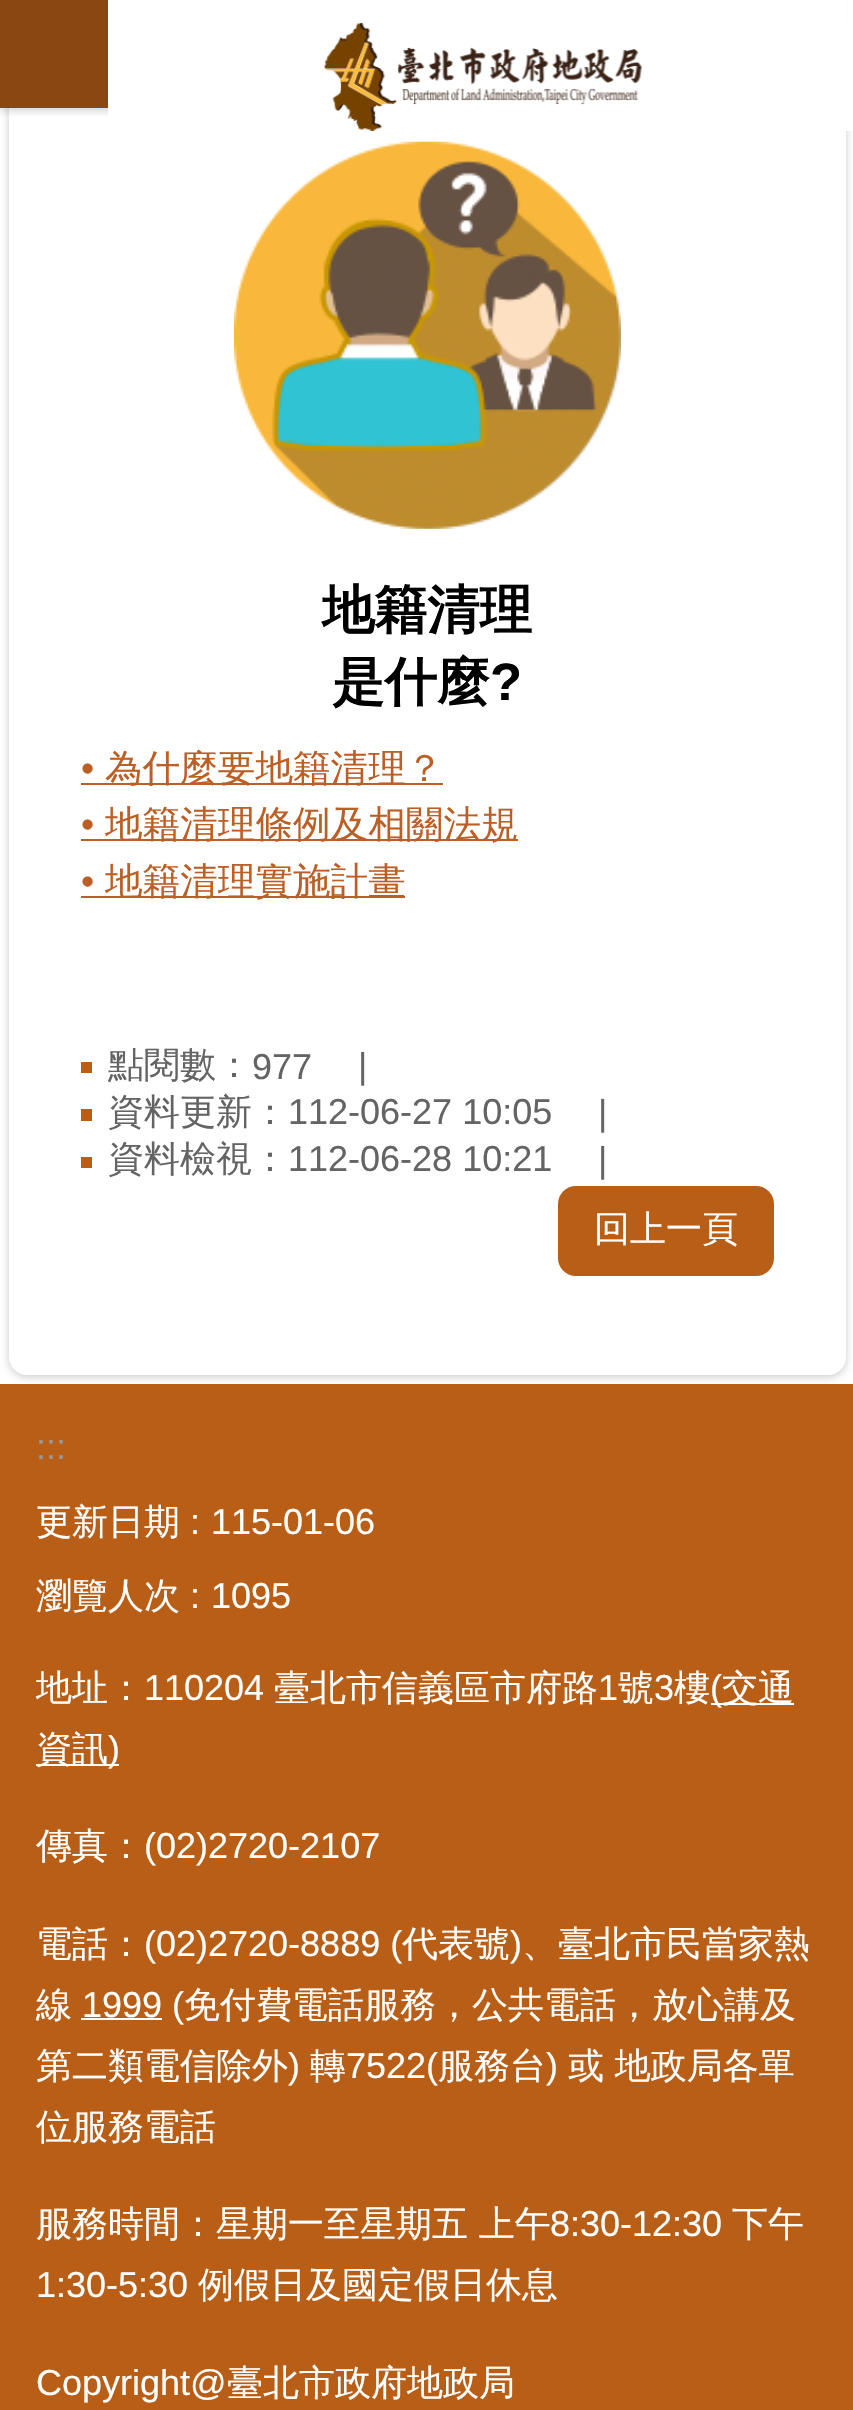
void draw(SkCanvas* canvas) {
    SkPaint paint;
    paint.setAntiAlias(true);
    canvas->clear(0xFFB85E17);
    paint.setColor(0xFFFFFFFF);
    canvas->drawRect(SkRect::MakeXYWH(0, 0, 853, 1384), paint);
    paint.setColor(0x33000000);
    paint.setMaskFilter(SkMaskFilter::MakeBlur(kNormal_SkBlurStyle, 4.5f));
    canvas->drawRoundRect(SkRect::MakeXYWH(9, -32, 837, 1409), 18, 18, paint);
    paint.setMaskFilter(nullptr);
    paint.setColor(0xFFFFFFFF);
    canvas->drawRoundRect(SkRect::MakeXYWH(9, -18, 837, 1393), 18, 18, paint);
    canvas->save();
    canvas->clipRect(SkRect::MakeXYWH(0, 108, 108, 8));
    paint.setColor(0x33000000);
    paint.setMaskFilter(SkMaskFilter::MakeBlur(kNormal_SkBlurStyle, 4.5f));
    canvas->drawRect(SkRect::MakeXYWH(0, 2, 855, 108), paint);
    paint.setMaskFilter(nullptr);
    canvas->restore();
    paint.setColor(0xE6FFFFFF);
    canvas->drawRect(SkRect::MakeXYWH(846, 0, 7, 23), paint);
    paint.setColor(0xFFFFFFFF);
    canvas->drawRect(SkRect::MakeXYWH(108, 23, 745, 108), paint);
    canvas->drawImageRect(SkImages::DeferredFromEncodedData(SkData::MakeFromFileName("img1.png")), SkRect::MakeXYWH(324, 23, 318, 108), SkSamplingOptions());
    paint.setColor(0xFF8B4711);
    canvas->drawRect(SkRect::MakeXYWH(0, 0, 108, 108), paint);
    canvas->drawImageRect(SkImages::DeferredFromEncodedData(SkData::MakeFromFileName("img2.png")), SkRect::MakeXYWH(234, 141, 387, 388), SkSamplingOptions());
    SkFont font1(fontMgr->matchFamilyStyle("WenQuanYi Zen Hei", SkFontStyle::Bold()), 52.5f);
    font1.setSubpixel(true);
    paint.setColor(0xFF000000);
    canvas->drawString("地籍清理", 322, 628, font1, paint);
    canvas->drawString("是什麼", 332, 700, font1, paint);
    SkFont font2(fontMgr->matchFamilyStyle("Liberation Sans", SkFontStyle::Bold()), 52.5f);
    font2.setSubpixel(true);
    canvas->drawString("?", 490, 700, font2, paint);
    SkFont font3(fontMgr->matchFamilyStyle("Liberation Sans", SkFontStyle::Normal()), 37.6f);
    font3.setSubpixel(true);
    paint.setColor(0xFFBC5F26);
    canvas->drawString("•", 81, 781, font3, paint);
    canvas->drawRect(SkRect::MakeXYWH(81, 783, 362, 2), paint);
    SkFont font4(fontMgr->matchFamilyStyle("WenQuanYi Zen Hei", SkFontStyle(500, SkFontStyle::kNormal_Width, SkFontStyle::kUpright_Slant)), 37.6f);
    font4.setSubpixel(true);
    canvas->drawString("為什麼要地籍清理？", 105, 781, font4, paint);
    canvas->drawString("•", 81, 837, font3, paint);
    canvas->drawRect(SkRect::MakeXYWH(81, 839, 437, 2), paint);
    canvas->drawString("地籍清理條例及相關法規", 105, 837, font4, paint);
    canvas->drawString("•", 81, 894, font3, paint);
    canvas->drawRect(SkRect::MakeXYWH(81, 896, 324, 2), paint);
    canvas->drawString("地籍清理實施計畫", 105, 894, font4, paint);
    paint.setColor(0xFFB85E17);
    canvas->drawRect(SkRect::MakeXYWH(81, 1062, 11, 11), paint);
    SkFont font5(fontMgr->matchFamilyStyle("WenQuanYi Zen Hei", SkFontStyle(500, SkFontStyle::kNormal_Width, SkFontStyle::kUpright_Slant)), 36);
    font5.setSubpixel(true);
    paint.setColor(0xFF646464);
    canvas->drawString("點閱數：", 108, 1077, font5, paint);
    SkFont font6(fontMgr->matchFamilyStyle("Liberation Sans", SkFontStyle::Normal()), 36);
    font6.setSubpixel(true);
    canvas->drawString("977", 252, 1079, font6, paint);
    canvas->drawString("|", 358, 1078, font6, paint);
    paint.setColor(0xFFB85E17);
    canvas->drawRect(SkRect::MakeXYWH(81, 1109, 11, 12), paint);
    paint.setColor(0xFF646464);
    canvas->drawString("資料更新：", 108, 1124, font5, paint);
    canvas->drawString("112-06-27 10:05", 288, 1124, font6, paint);
    canvas->drawString("|", 598, 1125, font6, paint);
    paint.setColor(0xFFB85E17);
    canvas->drawRect(SkRect::MakeXYWH(81, 1157, 11, 11), paint);
    paint.setColor(0xFF646464);
    canvas->drawString("資料檢視：", 108, 1171, font5, paint);
    canvas->drawString("112-06-28 10:21", 288, 1171, font6, paint);
    canvas->drawString("|", 598, 1172, font6, paint);
    paint.setColor(0xFFB85E17);
    canvas->drawRoundRect(SkRect::MakeXYWH(558, 1186, 216, 90), 18, 18, paint);
    paint.setColor(0xFFFFFFFF);
    canvas->drawString("回上一頁", 594, 1241, font5, paint);
    paint.setColor(0xFF979797);
    canvas->drawString(":::", 36, 1459, font6, paint);
    paint.setColor(0xFFFFFFFF);
    canvas->drawString("更新日期", 36, 1534, font5, paint);
    canvas->drawString(":", 190, 1534, font6, paint);
    canvas->drawString("115-01-06", 211, 1534, font6, paint);
    canvas->drawString("瀏覽人次", 36, 1608, font5, paint);
    canvas->drawString(":", 190, 1608, font6, paint);
    canvas->drawString("1095", 211, 1608, font6, paint);
    canvas->drawString("地址：", 36, 1700, font5, paint);
    canvas->drawString("110204", 144, 1700, font6, paint);
    canvas->drawString("臺北市信義區市府路", 274, 1700, font5, paint);
    canvas->drawString("1", 598, 1700, font6, paint);
    canvas->drawString("號", 618, 1700, font5, paint);
    canvas->drawString("3", 654, 1700, font6, paint);
    canvas->drawString("樓", 674, 1700, font5, paint);
    canvas->drawRect(SkRect::MakeXYWH(711, 1703, 83, 2), paint);
    canvas->drawString("(", 710, 1700, font6, paint);
    canvas->drawString("交通", 722, 1700, font5, paint);
    canvas->drawRect(SkRect::MakeXYWH(36, 1764, 83, 2), paint);
    canvas->drawString("資訊", 36, 1761, font5, paint);
    canvas->drawString(")", 108, 1761, font6, paint);
    canvas->drawString("傳真：", 36, 1858, font5, paint);
    canvas->drawString("(02)2720-2107", 144, 1858, font6, paint);
    canvas->drawString("電話：", 36, 1956, font5, paint);
    canvas->drawString("(02)2720-8889 (", 144, 1956, font6, paint);
    canvas->drawString("代表號", 402, 1956, font5, paint);
    canvas->drawString(")", 510, 1956, font6, paint);
    canvas->drawString("、臺北市民當家熱", 522, 1956, font5, paint);
    canvas->drawString("線", 36, 2017, font5, paint);
    canvas->drawRect(SkRect::MakeXYWH(81, 2018, 81, 2), paint);
    canvas->drawString("1999 (", 82, 2017, font6, paint);
    canvas->drawString("免付費電話服務，公共電話，放心講及", 184, 2017, font5, paint);
    canvas->drawString("第二類電信除外", 36, 2078, font5, paint);
    canvas->drawString(")", 288, 2078, font6, paint);
    canvas->drawString("轉", 310, 2078, font5, paint);
    canvas->drawString("7522(", 346, 2078, font6, paint);
    canvas->drawString("服務台", 438, 2078, font5, paint);
    canvas->drawString(")", 546, 2078, font6, paint);
    canvas->drawString("或 地政局各單", 568, 2078, font5, paint);
    canvas->drawString("位服務電話", 36, 2139, font5, paint);
    canvas->drawString("服務時間：星期一至星期五 上午", 36, 2236, font5, paint);
    canvas->drawString("8:30-12:30", 550, 2236, font6, paint);
    canvas->drawString("下午", 732, 2236, font5, paint);
    canvas->drawString("1:30-5:30", 36, 2297, font6, paint);
    canvas->drawString("例假日及國定假日休息", 198, 2297, font5, paint);
    canvas->drawString("Copyright@", 36, 2395, font6, paint);
    canvas->drawString("臺北市政府地政局", 227, 2395, font5, paint);
}
